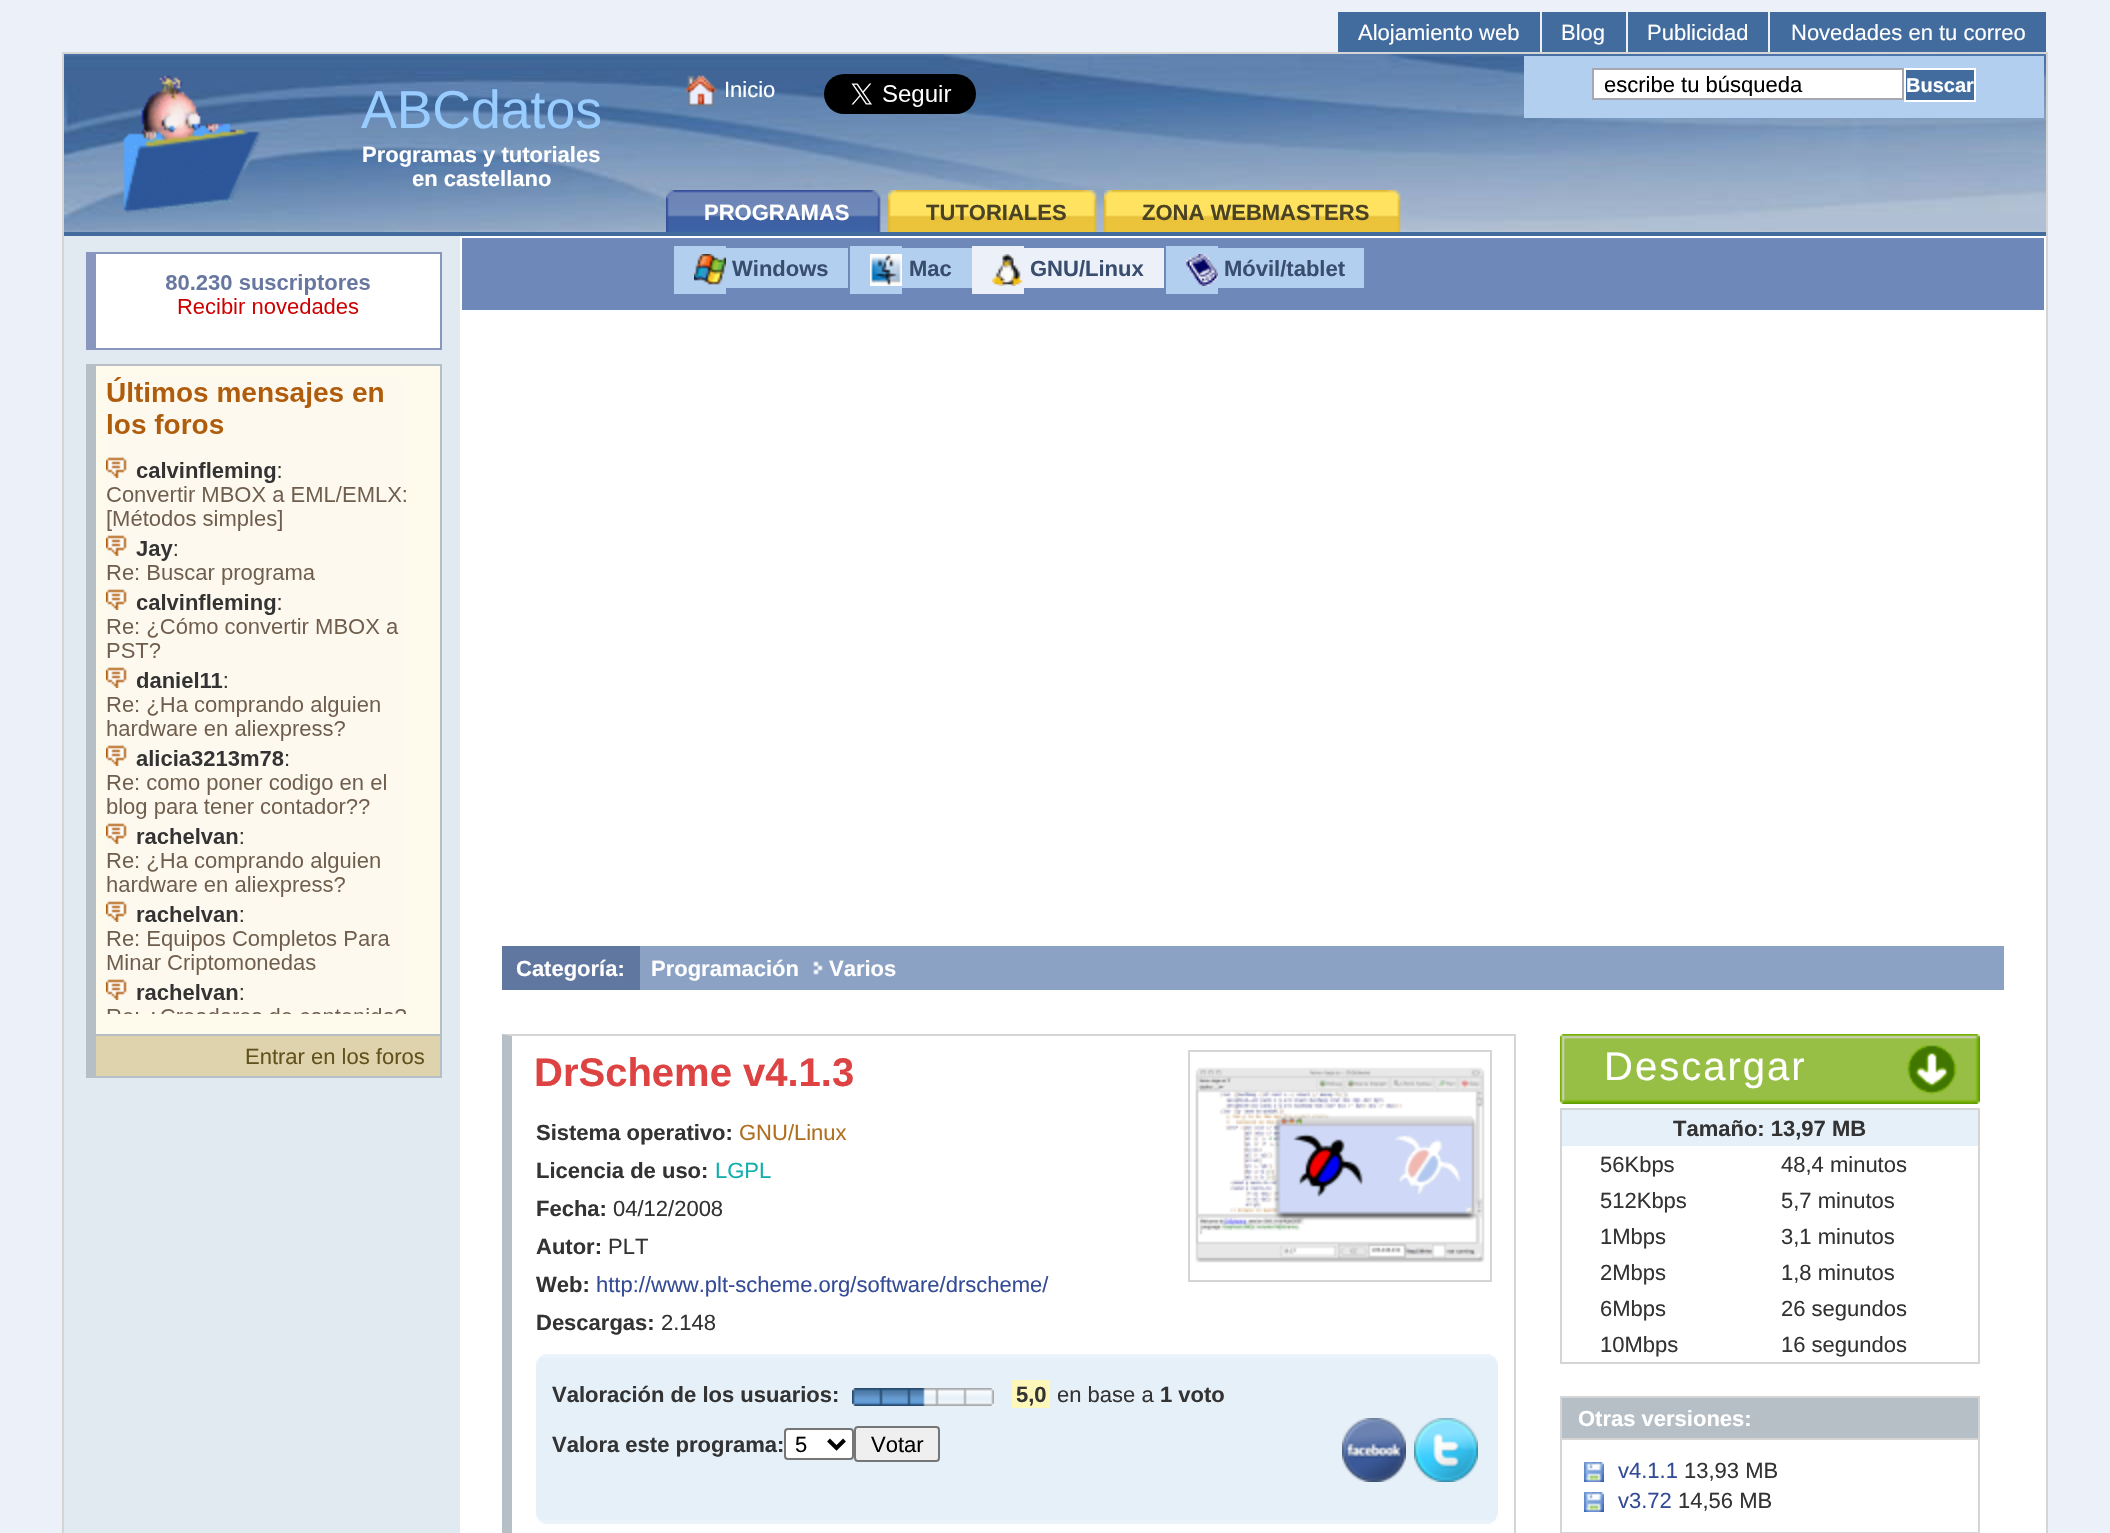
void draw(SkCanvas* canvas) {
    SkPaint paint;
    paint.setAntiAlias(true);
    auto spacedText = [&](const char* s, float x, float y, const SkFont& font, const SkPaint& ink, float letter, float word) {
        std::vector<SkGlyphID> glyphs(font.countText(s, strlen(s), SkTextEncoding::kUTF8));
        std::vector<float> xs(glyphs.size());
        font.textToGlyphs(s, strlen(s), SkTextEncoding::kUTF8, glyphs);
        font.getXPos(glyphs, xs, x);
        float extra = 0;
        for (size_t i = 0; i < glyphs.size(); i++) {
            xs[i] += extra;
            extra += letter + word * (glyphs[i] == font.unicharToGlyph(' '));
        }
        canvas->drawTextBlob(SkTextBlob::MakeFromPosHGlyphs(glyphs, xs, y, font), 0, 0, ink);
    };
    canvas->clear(0xFFECF0F8);
    paint.setColor(0xFF426C9E);
    canvas->drawRect(SkRect::MakeXYWH(1338, 12, 202, 40), paint);
    SkFont font1(fontMgr->matchFamilyStyle("Liberation Sans", SkFontStyle::Normal()), 22);
    font1.setSubpixel(true);
    paint.setColor(0xFFFFFFFF);
    canvas->drawString("Alojamiento web", 1358, 40, font1, paint);
    paint.setColor(0xFF426C9E);
    canvas->drawRect(SkRect::MakeXYWH(1542, 12, 84, 40), paint);
    paint.setColor(0xFFFFFFFF);
    canvas->drawString("Blog", 1561, 40, font1, paint);
    paint.setColor(0xFF426C9E);
    canvas->drawRect(SkRect::MakeXYWH(1628, 12, 140, 40), paint);
    paint.setColor(0xFFFFFFFF);
    canvas->drawString("Publicidad", 1647, 40, font1, paint);
    paint.setColor(0xFF426C9E);
    canvas->drawRect(SkRect::MakeXYWH(1770, 12, 276, 40), paint);
    paint.setColor(0xFFFFFFFF);
    canvas->drawString("Novedades en tu correo", 1791, 40, font1, paint);
    paint.setColor(0xFF426C9E);
    canvas->drawRect(SkRect::MakeXYWH(64, 232, 1982, 4), paint);
    canvas->drawImageRect(SkImages::DeferredFromEncodedData(SkData::MakeFromFileName("img1.png")), SkRect::MakeXYWH(64, 54, 1982, 178), SkSamplingOptions());
    paint.setColor(0xFFD5D5D5);
    canvas->drawRect(SkRect::MakeXYWH(62, 52, 1986, 2), paint);
    canvas->drawRect(SkRect::MakeXYWH(2046, 52, 2, 1481), paint);
    canvas->drawRect(SkRect::MakeXYWH(62, 52, 2, 1481), paint);
    canvas->drawImageRect(SkImages::DeferredFromEncodedData(SkData::MakeFromFileName("img2.png")), SkRect::MakeXYWH(123, 75, 139, 138), SkSamplingOptions());
    SkFont font2(fontMgr->matchFamilyStyle("Liberation Sans", SkFontStyle::Normal()), 53.5f);
    font2.setSubpixel(true);
    paint.setColor(0xFF99CCFF);
    canvas->drawString("ABCdatos", 361, 128, font2, paint);
    SkFont font3(fontMgr->matchFamilyStyle("Liberation Sans", SkFontStyle::Bold()), 22);
    font3.setSubpixel(true);
    paint.setColor(0xFFFFFFFF);
    canvas->drawString("Programas y tutoriales", 362, 162, font3, paint);
    canvas->drawString("en castellano", 412, 186, font3, paint);
    canvas->drawImageRect(SkImages::DeferredFromEncodedData(SkData::MakeFromFileName("img3.png")), SkRect::MakeXYWH(685, 75, 32, 32), SkSamplingOptions());
    canvas->drawString("Inicio", 724, 97, font1, paint);
    canvas->drawImageRect(SkImages::DeferredFromEncodedData(SkData::MakeFromFileName("img4.png")), SkRect::MakeXYWH(824, 74, 152, 40), SkSamplingOptions());
    paint.setColor(0xFFB2CFF0);
    canvas->drawRect(SkRect::MakeXYWH(1524, 56, 520, 62), paint);
    paint.setColor(0xFFFFFFFF);
    canvas->drawRect(SkRect::MakeXYWH(1593, 69, 310, 30), paint);
    paint.setStyle(SkPaint::kStroke_Style);
    paint.setStrokeWidth(2);
    paint.setColor(0xFFA7A7AF);
    canvas->drawRect(SkRect::MakeXYWH(1593, 69, 310, 30), paint);
    canvas->save();
    canvas->clipRect(SkRect::MakeXYWH(1598, 72, 300, 24));
    paint.setStyle(SkPaint::kFill_Style);
    paint.setColor(0xFF000000);
    canvas->drawString("escribe tu búsqueda", 1604, 92, font1, paint);
    canvas->restore();
    paint.setColor(0xFF426C9E);
    canvas->drawRect(SkRect::MakeXYWH(1905, 69, 70, 32), paint);
    paint.setStyle(SkPaint::kStroke_Style);
    paint.setColor(0xFFFFFFFF);
    canvas->drawRect(SkRect::MakeXYWH(1905, 69, 70, 32), paint);
    SkFont font4(fontMgr->matchFamilyStyle("Liberation Sans", SkFontStyle::Bold()), 20);
    font4.setSubpixel(true);
    paint.setStyle(SkPaint::kFill_Style);
    canvas->drawString("Buscar", 1906, 92, font4, paint);
    canvas->drawImageRect(SkImages::DeferredFromEncodedData(SkData::MakeFromFileName("img5.png")), SkRect::MakeXYWH(666, 190, 8, 42), SkSamplingOptions());
    canvas->drawImageRect(SkImages::DeferredFromEncodedData(SkData::MakeFromFileName("img6.png")), SkRect::MakeXYWH(674, 190, 207, 42), SkSamplingOptions());
    canvas->drawString("PROGRAMAS", 704, 220, font3, paint);
    canvas->drawImageRect(SkImages::DeferredFromEncodedData(SkData::MakeFromFileName("img7.png")), SkRect::MakeXYWH(888, 190, 8, 42), SkSamplingOptions());
    canvas->drawImageRect(SkImages::DeferredFromEncodedData(SkData::MakeFromFileName("img8.png")), SkRect::MakeXYWH(896, 190, 201, 42), SkSamplingOptions());
    paint.setColor(0xFF4A4224);
    canvas->drawString("TUTORIALES", 926, 220, font3, paint);
    canvas->drawImageRect(SkImages::DeferredFromEncodedData(SkData::MakeFromFileName("img9.png")), SkRect::MakeXYWH(1104, 190, 8, 42), SkSamplingOptions());
    canvas->drawImageRect(SkImages::DeferredFromEncodedData(SkData::MakeFromFileName("img10.png")), SkRect::MakeXYWH(1112, 190, 289, 42), SkSamplingOptions());
    canvas->drawString("ZONA WEBMASTERS", 1142, 220, font3, paint);
    paint.setColor(0xFFFFFFFF);
    canvas->drawRect(SkRect::MakeXYWH(460, 236, 1586, 796), paint);
    paint.setColor(0xFF6E88B9);
    canvas->drawRect(SkRect::MakeXYWH(462, 238, 1582, 72), paint);
    paint.setColor(0xFFB2CFF0);
    canvas->drawRect(SkRect::MakeXYWH(674, 246, 52, 48), paint);
    canvas->drawImageRect(SkImages::DeferredFromEncodedData(SkData::MakeFromFileName("img11.png")), SkRect::MakeXYWH(694, 254, 32, 31), SkSamplingOptions());
    canvas->drawRect(SkRect::MakeXYWH(726, 248, 122, 40), paint);
    paint.setColor(0xFF394D6F);
    canvas->drawString("Windows", 732, 276, font3, paint);
    paint.setColor(0xFFB2CFF0);
    canvas->drawRect(SkRect::MakeXYWH(850, 246, 52, 48), paint);
    canvas->drawImageRect(SkImages::DeferredFromEncodedData(SkData::MakeFromFileName("img12.png")), SkRect::MakeXYWH(870, 254, 32, 32), SkSamplingOptions());
    canvas->drawRect(SkRect::MakeXYWH(902, 248, 70, 40), paint);
    paint.setColor(0xFF394D6F);
    canvas->drawString("Mac", 909, 276, font3, paint);
    paint.setColor(0xFFECF0F8);
    canvas->drawRect(SkRect::MakeXYWH(972, 246, 52, 48), paint);
    canvas->drawImageRect(SkImages::DeferredFromEncodedData(SkData::MakeFromFileName("img13.png")), SkRect::MakeXYWH(992, 254, 31, 32), SkSamplingOptions());
    canvas->drawRect(SkRect::MakeXYWH(1024, 248, 140, 40), paint);
    paint.setColor(0xFF394D6F);
    canvas->drawString("GNU/Linux", 1030, 276, font3, paint);
    paint.setColor(0xFFB2CFF0);
    canvas->drawRect(SkRect::MakeXYWH(1166, 246, 52, 48), paint);
    canvas->drawImageRect(SkImages::DeferredFromEncodedData(SkData::MakeFromFileName("img14.png")), SkRect::MakeXYWH(1186, 254, 32, 32), SkSamplingOptions());
    canvas->drawRect(SkRect::MakeXYWH(1218, 248, 146, 40), paint);
    paint.setColor(0xFF394D6F);
    canvas->drawString("Móvil/tablet", 1224, 276, font3, paint);
    paint.setColor(0xFF8CA2C4);
    canvas->drawRect(SkRect::MakeXYWH(640, 946, 1364, 44), paint);
    paint.setColor(0xFF6078A0);
    canvas->drawRect(SkRect::MakeXYWH(502, 946, 138, 44), paint);
    paint.setColor(0xFFFFFFFF);
    canvas->drawString("Categoría:", 516, 976, font3, paint);
    canvas->drawString("Programación", 651, 976, font3, paint);
    canvas->drawImageRect(SkImages::DeferredFromEncodedData(SkData::MakeFromFileName("img15.png")), SkRect::MakeXYWH(813, 961, 10, 14), SkSamplingOptions());
    canvas->drawString("Varios", 829, 976, font3, paint);
    paint.setColor(0xFFE1E9F1);
    canvas->drawRect(SkRect::MakeXYWH(64, 236, 396, 1297), paint);
    paint.setColor(0xFFFFFFFF);
    canvas->drawRect(SkRect::MakeXYWH(96, 254, 344, 94), paint);
    paint.setColor(0xFF8997BF);
    canvas->drawRect(SkRect::MakeXYWH(96, 252, 346, 2), paint);
    canvas->drawRect(SkRect::MakeXYWH(440, 252, 2, 98), paint);
    canvas->drawRect(SkRect::MakeXYWH(96, 348, 346, 2), paint);
    canvas->drawRect(SkRect::MakeXYWH(86, 252, 10, 98), paint);
    canvas->drawImageRect(SkImages::DeferredFromEncodedData(SkData::MakeFromFileName("img16.png")), SkRect::MakeXYWH(166, 274, 204, 40), SkSamplingOptions());
    paint.setColor(0xFFFEFAEC);
    canvas->drawRect(SkRect::MakeXYWH(96, 366, 344, 668), paint);
    paint.setColor(0xFFB6BEC6);
    canvas->drawRect(SkRect::MakeXYWH(96, 364, 346, 2), paint);
    canvas->drawRect(SkRect::MakeXYWH(440, 364, 2, 714), paint);
    canvas->drawRect(SkRect::MakeXYWH(96, 1076, 346, 2), paint);
    canvas->drawRect(SkRect::MakeXYWH(86, 364, 10, 714), paint);
    canvas->drawImageRect(SkImages::DeferredFromEncodedData(SkData::MakeFromFileName("img17.png")), SkRect::MakeXYWH(106, 377, 300, 637), SkSamplingOptions());
    paint.setColor(0xFFDED3AC);
    canvas->drawRect(SkRect::MakeXYWH(96, 1036, 344, 40), paint);
    paint.setColor(0xFFB6BEC6);
    canvas->drawRect(SkRect::MakeXYWH(96, 1034, 344, 2), paint);
    paint.setColor(0xFF61521D);
    canvas->drawString("Entrar en los foros", 245, 1064, font1, paint);
    paint.setColor(0xFFFFFFFF);
    canvas->drawRect(SkRect::MakeXYWH(460, 1032, 1586, 501), paint);
    paint.setColor(0xFFD5D5D5);
    canvas->drawPath(SkPathBuilder().moveTo(502, 1034).lineTo(1516, 1034).lineTo(1514, 1036).lineTo(512, 1036).close().detach(), paint);
    canvas->drawRect(SkRect::MakeXYWH(1514, 1034, 2, 499), paint);
    paint.setColor(0xFFB6BEC6);
    canvas->drawPath(SkPathBuilder().moveTo(502, 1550).lineTo(502, 1034).lineTo(512, 1036).lineTo(512, 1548).close().detach(), paint);
    SkFont font5(fontMgr->matchFamilyStyle("Liberation Sans", SkFontStyle::Bold()), 40);
    font5.setSubpixel(true);
    paint.setColor(0xFFDD4343);
    canvas->drawString("DrScheme v4.1.3", 534, 1086, font5, paint);
    paint.setStyle(SkPaint::kStroke_Style);
    paint.setColor(0xFFD5D5D5);
    canvas->drawRect(SkRect::MakeXYWH(1189, 1051, 302, 230), paint);
    canvas->drawImageRect(SkImages::DeferredFromEncodedData(SkData::MakeFromFileName("img18.png")), SkRect::MakeXYWH(1195, 1067, 290, 196), SkSamplingOptions());
    paint.setStyle(SkPaint::kFill_Style);
    paint.setColor(0xFF333333);
    canvas->drawString("Sistema operativo:", 536, 1140, font3, paint);
    paint.setColor(0xFFAF6F1F);
    canvas->drawString("GNU/Linux", 739, 1140, font1, paint);
    paint.setColor(0xFF333333);
    canvas->drawString("Licencia de uso:", 536, 1178, font3, paint);
    paint.setColor(0xFF12AEAC);
    canvas->drawString("LGPL", 715, 1178, font1, paint);
    paint.setColor(0xFF333333);
    canvas->drawString("Fecha:", 536, 1216, font3, paint);
    canvas->drawString("04/12/2008", 613, 1216, font1, paint);
    canvas->drawString("Autor:", 536, 1254, font3, paint);
    canvas->drawString("PLT", 608, 1254, font1, paint);
    canvas->drawString("Web:", 536, 1292, font3, paint);
    paint.setColor(0xFF344B96);
    canvas->drawString("http://www.plt-scheme.org/software/drscheme/", 596, 1292, font1, paint);
    paint.setColor(0xFF333333);
    canvas->drawString("Descargas:", 536, 1330, font3, paint);
    canvas->drawString("2.148", 661, 1330, font1, paint);
    paint.setColor(0xFFECF3FA);
    canvas->drawRect(SkRect::MakeXYWH(542, 1354, 950, 2), paint);
    paint.setColor(0xFFF4F8FC);
    canvas->drawRect(SkRect::MakeXYWH(1490, 1354, 2, 2), paint);
    canvas->drawRect(SkRect::MakeXYWH(542, 1354, 2, 2), paint);
    paint.setColor(0xFFEAF2FA);
    canvas->drawRect(SkRect::MakeXYWH(538, 1356, 958, 2), paint);
    paint.setColor(0xFFFCFDFE);
    canvas->drawRect(SkRect::MakeXYWH(1494, 1356, 2, 2), paint);
    canvas->drawRect(SkRect::MakeXYWH(538, 1356, 2, 2), paint);
    paint.setColor(0xFFE6F0F9);
    canvas->drawRect(SkRect::MakeXYWH(538, 1358, 958, 2), paint);
    paint.setColor(0xFFEAF2FA);
    canvas->drawRect(SkRect::MakeXYWH(1494, 1358, 2, 2), paint);
    canvas->drawRect(SkRect::MakeXYWH(538, 1358, 2, 2), paint);
    paint.setColor(0xFFE6F0F9);
    canvas->drawRect(SkRect::MakeXYWH(536, 1360, 962, 4), paint);
    paint.setColor(0xFFF4F8FC);
    canvas->drawRect(SkRect::MakeXYWH(1496, 1360, 2, 2), paint);
    canvas->drawRect(SkRect::MakeXYWH(536, 1360, 2, 2), paint);
    paint.setColor(0xFFECF3FA);
    canvas->drawRect(SkRect::MakeXYWH(1496, 1362, 2, 2), paint);
    canvas->drawRect(SkRect::MakeXYWH(536, 1362, 2, 2), paint);
    paint.setColor(0xFFE6F0F9);
    canvas->drawRect(SkRect::MakeXYWH(536, 1364, 962, 154), paint);
    paint.setColor(0xFF333333);
    canvas->drawString("Valoración de los usuarios:", 552, 1402, font3, paint);
    canvas->drawImageRect(SkImages::DeferredFromEncodedData(SkData::MakeFromFileName("img19.png")), SkRect::MakeXYWH(852, 1388, 142, 18), SkSamplingOptions());
    paint.setColor(0xFFFDF7B9);
    canvas->drawRect(SkRect::MakeXYWH(1012, 1380, 38, 28), paint);
    paint.setColor(0xFF333333);
    canvas->drawString("5,0", 1016, 1402, font3, paint);
    canvas->drawString("en base a", 1057, 1402, font1, paint);
    canvas->drawString("1 voto", 1160, 1402, font3, paint);
    canvas->drawString("Valora este programa:", 552, 1452, font3, paint);
    paint.setColor(0xFFFFFFFF);
    canvas->drawRoundRect(SkRect::MakeXYWH(785, 1429, 68, 30), 3, 3, paint);
    paint.setStyle(SkPaint::kStroke_Style);
    paint.setColor(0xFF767676);
    canvas->drawRoundRect(SkRect::MakeXYWH(785, 1429, 68, 30), 3, 3, paint);
    paint.setStrokeWidth(4);
    paint.setColor(0xFF000000);
    canvas->drawPath(SkPathBuilder().moveTo(828.5f, 1440).lineTo(836.5f, 1448).lineTo(844.5f, 1440).detach(), paint);
    paint.setStyle(SkPaint::kFill_Style);
    canvas->drawString("5", 795, 1452, font1, paint);
    paint.setColor(0xFFEFEFEF);
    canvas->drawRoundRect(SkRect::MakeXYWH(855, 1427, 84, 34), 3, 3, paint);
    paint.setStyle(SkPaint::kStroke_Style);
    paint.setStrokeWidth(2);
    paint.setColor(0xFF767676);
    canvas->drawRoundRect(SkRect::MakeXYWH(855, 1427, 84, 34), 3, 3, paint);
    paint.setStyle(SkPaint::kFill_Style);
    paint.setColor(0xFF000000);
    canvas->drawString("Votar", 871, 1452, font1, paint);
    canvas->drawImageRect(SkImages::DeferredFromEncodedData(SkData::MakeFromFileName("img20.png")), SkRect::MakeXYWH(1342, 1418, 64, 64), SkSamplingOptions());
    canvas->drawImageRect(SkImages::DeferredFromEncodedData(SkData::MakeFromFileName("img21.png")), SkRect::MakeXYWH(1414, 1418, 64, 64), SkSamplingOptions());
    paint.setColor(0xFFECF3FA);
    canvas->drawRect(SkRect::MakeXYWH(1496, 1514, 2, 2), paint);
    canvas->drawRect(SkRect::MakeXYWH(536, 1514, 2, 2), paint);
    paint.setColor(0xFFF4F8FC);
    canvas->drawRect(SkRect::MakeXYWH(1496, 1516, 2, 2), paint);
    canvas->drawRect(SkRect::MakeXYWH(536, 1516, 2, 2), paint);
    paint.setColor(0xFFE6F0F9);
    canvas->drawRect(SkRect::MakeXYWH(538, 1518, 958, 2), paint);
    paint.setColor(0xFFEAF2FA);
    canvas->drawRect(SkRect::MakeXYWH(1494, 1518, 2, 2), paint);
    canvas->drawRect(SkRect::MakeXYWH(538, 1518, 2, 2), paint);
    canvas->drawRect(SkRect::MakeXYWH(538, 1520, 958, 2), paint);
    paint.setColor(0xFFFCFDFE);
    canvas->drawRect(SkRect::MakeXYWH(1494, 1520, 2, 2), paint);
    canvas->drawRect(SkRect::MakeXYWH(538, 1520, 2, 2), paint);
    paint.setColor(0xFFECF3FA);
    canvas->drawRect(SkRect::MakeXYWH(542, 1522, 950, 2), paint);
    paint.setColor(0xFFF4F8FC);
    canvas->drawRect(SkRect::MakeXYWH(1490, 1522, 2, 2), paint);
    canvas->drawRect(SkRect::MakeXYWH(542, 1522, 2, 2), paint);
    canvas->drawImageRect(SkImages::DeferredFromEncodedData(SkData::MakeFromFileName("img22.png")), SkRect::MakeXYWH(1560, 1034, 420, 70), SkSamplingOptions());
    SkFont font6(fontMgr->matchFamilyStyle("Liberation Sans", SkFontStyle::Normal()), 40);
    font6.setSubpixel(true);
    paint.setColor(0xFFFFFFFF);
    spacedText("Descargar", 1604, 1080, font6, paint, 2, 0);
    paint.setColor(0xFFD5D5D5);
    canvas->drawRect(SkRect::MakeXYWH(1560, 1108, 420, 2), paint);
    canvas->drawRect(SkRect::MakeXYWH(1978, 1108, 2, 256), paint);
    canvas->drawRect(SkRect::MakeXYWH(1560, 1362, 420, 2), paint);
    canvas->drawRect(SkRect::MakeXYWH(1560, 1108, 2, 256), paint);
    paint.setColor(0xFFE6F0F9);
    canvas->drawRect(SkRect::MakeXYWH(1562, 1110, 416, 36), paint);
    paint.setColor(0xFF333333);
    canvas->drawString("Tamaño: 13,97 MB", 1673, 1136, font3, paint);
    canvas->drawString("56Kbps", 1600, 1172, font1, paint);
    canvas->drawString("48,4 minutos", 1781, 1172, font1, paint);
    canvas->drawString("512Kbps", 1600, 1208, font1, paint);
    canvas->drawString("5,7 minutos", 1781, 1208, font1, paint);
    canvas->drawString("1Mbps", 1600, 1244, font1, paint);
    canvas->drawString("3,1 minutos", 1781, 1244, font1, paint);
    canvas->drawString("2Mbps", 1600, 1280, font1, paint);
    canvas->drawString("1,8 minutos", 1781, 1280, font1, paint);
    canvas->drawString("6Mbps", 1600, 1316, font1, paint);
    canvas->drawString("26 segundos", 1781, 1316, font1, paint);
    canvas->drawString("10Mbps", 1600, 1352, font1, paint);
    canvas->drawString("16 segundos", 1781, 1352, font1, paint);
    paint.setStyle(SkPaint::kStroke_Style);
    paint.setColor(0xFFD5D5D5);
    canvas->drawRect(SkRect::MakeXYWH(1561, 1397, 418, 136), paint);
    paint.setStyle(SkPaint::kFill_Style);
    paint.setColor(0xFFB6BEC6);
    canvas->drawRect(SkRect::MakeXYWH(1562, 1398, 416, 40), paint);
    paint.setColor(0xFFD5D5D5);
    canvas->drawRect(SkRect::MakeXYWH(1562, 1438, 416, 2), paint);
    paint.setColor(0xFFFFFFFF);
    canvas->drawString("Otras versiones:", 1578, 1426, font3, paint);
    canvas->drawImageRect(SkImages::DeferredFromEncodedData(SkData::MakeFromFileName("img23.png")), SkRect::MakeXYWH(1584, 1462, 20, 20), SkSamplingOptions());
    paint.setColor(0xFF344B96);
    canvas->drawString("v4.1.1", 1618, 1478, font1, paint);
    paint.setColor(0xFF333333);
    canvas->drawString("13,93 MB", 1684, 1478, font1, paint);
    canvas->drawImageRect(SkImages::DeferredFromEncodedData(SkData::MakeFromFileName("img23.png")), SkRect::MakeXYWH(1584, 1492, 20, 20), SkSamplingOptions());
    paint.setColor(0xFF344B96);
    canvas->drawString("v3.72", 1618, 1508, font1, paint);
    paint.setColor(0xFF333333);
    canvas->drawString("14,56 MB", 1678, 1508, font1, paint);
}
